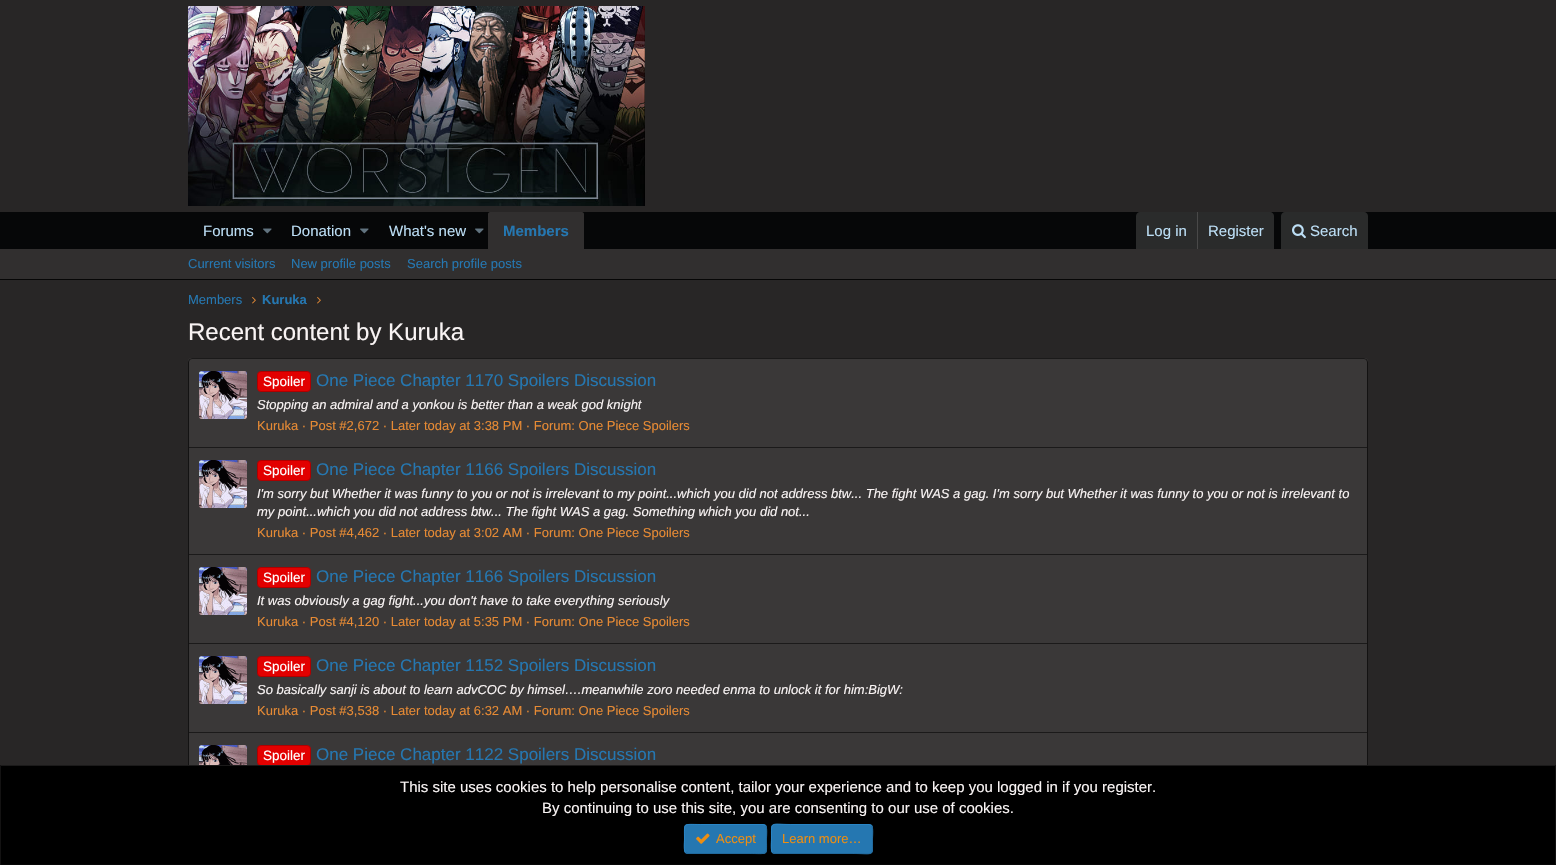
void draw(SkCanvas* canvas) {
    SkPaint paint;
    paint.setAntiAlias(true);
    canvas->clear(0xFF282626);
    canvas->drawImageRect(SkImages::DeferredFromEncodedData(SkData::MakeFromFileName("img1.png")), SkRect::MakeXYWH(188, 6, 457, 200), SkSamplingOptions());
    paint.setColor(0xFF060708);
    canvas->drawRect(SkRect::MakeXYWH(0, 212, 1556, 37), paint);
    SkFont font1(fontMgr->matchFamilyStyle("Liberation Sans", SkFontStyle::Normal()), 15);
    font1.setSubpixel(true);
    paint.setColor(0xFFBCDEF5);
    canvas->drawString("Forums", 203, 236, font1, paint);
    canvas->drawImageRect(SkImages::DeferredFromEncodedData(SkData::MakeFromFileName("img2.png")), SkRect::MakeXYWH(263, 228, 9, 6), SkSamplingOptions());
    canvas->drawString("Donation", 291, 236, font1, paint);
    canvas->drawImageRect(SkImages::DeferredFromEncodedData(SkData::MakeFromFileName("img2.png")), SkRect::MakeXYWH(360, 228, 9, 6), SkSamplingOptions());
    canvas->drawString("What's new", 389, 236, font1, paint);
    canvas->drawImageRect(SkImages::DeferredFromEncodedData(SkData::MakeFromFileName("img2.png")), SkRect::MakeXYWH(475, 228, 9, 6), SkSamplingOptions());
    paint.setColor(0xFF312F2F);
    canvas->drawPath(SkPathBuilder().moveTo(490, 212).lineTo(582, 212).cubicTo(583, 212, 584, 213, 584, 214).lineTo(584, 249).lineTo(488, 249).lineTo(488, 214).cubicTo(488, 213, 489, 212, 490, 212).close().detach(), paint);
    SkFont font2(fontMgr->matchFamilyStyle("Liberation Sans", SkFontStyle::Bold()), 15);
    font2.setSubpixel(true);
    paint.setColor(0xFF2577B1);
    canvas->drawString("Members", 503, 236, font2, paint);
    paint.setColor(0xFF2A2B2B);
    canvas->drawPath(SkPathBuilder().moveTo(1140, 212).lineTo(1270, 212).cubicTo(1272, 212, 1274, 214, 1274, 216).lineTo(1274, 249).lineTo(1136, 249).lineTo(1136, 216).cubicTo(1136, 214, 1138, 212, 1140, 212).close().detach(), paint);
    paint.setColor(0xFFBCDEF5);
    canvas->drawString("Log in", 1146, 236, font1, paint);
    paint.setColor(0xFF494949);
    canvas->drawRect(SkRect::MakeXYWH(1197, 212, 1, 37), paint);
    paint.setColor(0xFFBCDEF5);
    canvas->drawString("Register", 1208, 236, font1, paint);
    paint.setColor(0xFF2A2B2B);
    canvas->drawPath(SkPathBuilder().moveTo(1285, 212).lineTo(1364, 212).cubicTo(1366, 212, 1368, 214, 1368, 216).lineTo(1368, 249).lineTo(1281, 249).lineTo(1281, 216).cubicTo(1281, 214, 1283, 212, 1285, 212).close().detach(), paint);
    canvas->drawImageRect(SkImages::DeferredFromEncodedData(SkData::MakeFromFileName("img3.png")), SkRect::MakeXYWH(1292, 224, 14, 15), SkSamplingOptions());
    paint.setColor(0xFFBCDEF5);
    canvas->drawString("Search", 1310, 236, font1, paint);
    paint.setColor(0xFF312F2F);
    canvas->drawRect(SkRect::MakeXYWH(0, 249, 1556, 30), paint);
    paint.setColor(0xFF060606);
    canvas->drawRect(SkRect::MakeXYWH(0, 279, 1556, 1), paint);
    SkFont font3(fontMgr->matchFamilyStyle("Liberation Sans", SkFontStyle::Normal()), 13);
    font3.setSubpixel(true);
    paint.setColor(0xFF2577B1);
    canvas->drawString("Current visitors", 188, 268, font3, paint);
    canvas->drawString("New profile posts", 291, 268, font3, paint);
    canvas->drawString("Search profile posts", 407, 268, font3, paint);
    canvas->drawString("Members", 188, 304, font3, paint);
    canvas->drawImageRect(SkImages::DeferredFromEncodedData(SkData::MakeFromFileName("img4.png")), SkRect::MakeXYWH(252, 297, 4, 7), SkSamplingOptions());
    SkFont font4(fontMgr->matchFamilyStyle("Liberation Sans", SkFontStyle::Bold()), 13);
    font4.setSubpixel(true);
    canvas->drawString("Kuruka", 262, 304, font4, paint);
    canvas->drawImageRect(SkImages::DeferredFromEncodedData(SkData::MakeFromFileName("img4.png")), SkRect::MakeXYWH(317, 297, 4, 7), SkSamplingOptions());
    SkFont font5(fontMgr->matchFamilyStyle("Liberation Sans", SkFontStyle::Normal()), 24);
    font5.setSubpixel(true);
    paint.setColor(0xFFF9F4F4);
    canvas->drawString("Recent content by Kuruka", 188, 340, font5, paint);
    paint.setColor(0xFF3A3838);
    canvas->drawRoundRect(SkRect::MakeXYWH(188, 358, 1180, 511), 4, 4, paint);
    paint.setStyle(SkPaint::kStroke_Style);
    paint.setStrokeWidth(1);
    paint.setColor(0xFF1B1A1A);
    canvas->drawPath(SkPathBuilder().moveTo(189.5f, 359.5f).lineTo(192, 358.5f).lineTo(1364, 358.5f).lineTo(1366.5f, 359.5f).detach(), paint);
    paint.setColor(0xFF131212);
    canvas->drawPath(SkPathBuilder().moveTo(1366.5f, 359.5f).lineTo(1367.5f, 362).lineTo(1367.5f, 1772).lineTo(1366.5f, 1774.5f).detach(), paint);
    canvas->drawPath(SkPathBuilder().moveTo(189.5f, 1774.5f).lineTo(188.5f, 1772).lineTo(188.5f, 362).lineTo(189.5f, 359.5f).detach(), paint);
    canvas->drawImageRect(SkImages::DeferredFromEncodedData(SkData::MakeFromFileName("img5.png")), SkRect::MakeXYWH(199, 371, 48, 48), SkSamplingOptions());
    paint.setStyle(SkPaint::kFill_Style);
    paint.setColor(0xFFE20000);
    canvas->drawRoundRect(SkRect::MakeXYWH(257.5f, 371.5f, 53, 20), 3.5f, 3.5f, paint);
    paint.setStyle(SkPaint::kStroke_Style);
    paint.setColor(0xFFAF0000);
    canvas->drawRoundRect(SkRect::MakeXYWH(257.5f, 371.5f, 53, 20), 3.5f, 3.5f, paint);
    SkFont font6(fontMgr->matchFamilyStyle("Liberation Sans", SkFontStyle::Normal()), 13.5f);
    font6.setSubpixel(true);
    paint.setStyle(SkPaint::kFill_Style);
    paint.setColor(0xFFFFFFFF);
    canvas->drawString("Spoiler", 263, 386, font6, paint);
    SkFont font7(fontMgr->matchFamilyStyle("Liberation Sans", SkFontStyle::Normal()), 17);
    font7.setSubpixel(true);
    paint.setColor(0xFF2577B1);
    canvas->drawString("One Piece Chapter 1170 Spoilers Discussion", 316, 386, font7, paint);
    SkFont font8(fontMgr->matchFamilyStyle("Liberation Sans", SkFontStyle::Italic()), 13);
    font8.setSubpixel(true);
    paint.setColor(0xFFF9F4F4);
    canvas->drawString("Stopping an admiral and a yonkou is better than a weak god knight", 257, 409, font8, paint);
    paint.setColor(0xFFE68A34);
    canvas->drawString("Kuruka · Post #2,672 · Later today at 3:38 PM · Forum: One Piece Spoilers", 257, 430, font3, paint);
    paint.setColor(0xFF1B1A1A);
    canvas->drawRect(SkRect::MakeXYWH(189, 447, 1178, 1), paint);
    canvas->drawImageRect(SkImages::DeferredFromEncodedData(SkData::MakeFromFileName("img5.png")), SkRect::MakeXYWH(199, 460, 48, 48), SkSamplingOptions());
    paint.setColor(0xFFE20000);
    canvas->drawRoundRect(SkRect::MakeXYWH(257.5f, 460.5f, 53, 20), 3.5f, 3.5f, paint);
    paint.setStyle(SkPaint::kStroke_Style);
    paint.setColor(0xFFAF0000);
    canvas->drawRoundRect(SkRect::MakeXYWH(257.5f, 460.5f, 53, 20), 3.5f, 3.5f, paint);
    paint.setStyle(SkPaint::kFill_Style);
    paint.setColor(0xFFFFFFFF);
    canvas->drawString("Spoiler", 263, 475, font6, paint);
    paint.setColor(0xFF2577B1);
    canvas->drawString("One Piece Chapter 1166 Spoilers Discussion", 316, 475, font7, paint);
    paint.setColor(0xFFF9F4F4);
    canvas->drawString("I'm sorry but Whether it was funny to you or not is irrelevant to my point...which you did not address btw... The fight WAS a gag. I'm sorry but Whether it was funny to you or not is irrelevant to", 257, 498, font8, paint);
    canvas->drawString("my point...which you did not address btw... The fight WAS a gag. Something which you did not...", 257, 516, font8, paint);
    paint.setColor(0xFFE68A34);
    canvas->drawString("Kuruka · Post #4,462 · Later today at 3:02 AM · Forum: One Piece Spoilers", 257, 537, font3, paint);
    paint.setColor(0xFF1B1A1A);
    canvas->drawRect(SkRect::MakeXYWH(189, 554, 1178, 1), paint);
    canvas->drawImageRect(SkImages::DeferredFromEncodedData(SkData::MakeFromFileName("img5.png")), SkRect::MakeXYWH(199, 567, 48, 48), SkSamplingOptions());
    paint.setColor(0xFFE20000);
    canvas->drawRoundRect(SkRect::MakeXYWH(257.5f, 567.5f, 53, 20), 3.5f, 3.5f, paint);
    paint.setStyle(SkPaint::kStroke_Style);
    paint.setColor(0xFFAF0000);
    canvas->drawRoundRect(SkRect::MakeXYWH(257.5f, 567.5f, 53, 20), 3.5f, 3.5f, paint);
    paint.setStyle(SkPaint::kFill_Style);
    paint.setColor(0xFFFFFFFF);
    canvas->drawString("Spoiler", 263, 582, font6, paint);
    paint.setColor(0xFF2577B1);
    canvas->drawString("One Piece Chapter 1166 Spoilers Discussion", 316, 582, font7, paint);
    paint.setColor(0xFFF9F4F4);
    canvas->drawString("It was obviously a gag fight...you don't have to take everything seriously", 257, 605, font8, paint);
    paint.setColor(0xFFE68A34);
    canvas->drawString("Kuruka · Post #4,120 · Later today at 5:35 PM · Forum: One Piece Spoilers", 257, 626, font3, paint);
    paint.setColor(0xFF1B1A1A);
    canvas->drawRect(SkRect::MakeXYWH(189, 643, 1178, 1), paint);
    canvas->drawImageRect(SkImages::DeferredFromEncodedData(SkData::MakeFromFileName("img5.png")), SkRect::MakeXYWH(199, 656, 48, 48), SkSamplingOptions());
    paint.setColor(0xFFE20000);
    canvas->drawRoundRect(SkRect::MakeXYWH(257.5f, 656.5f, 53, 20), 3.5f, 3.5f, paint);
    paint.setStyle(SkPaint::kStroke_Style);
    paint.setColor(0xFFAF0000);
    canvas->drawRoundRect(SkRect::MakeXYWH(257.5f, 656.5f, 53, 20), 3.5f, 3.5f, paint);
    paint.setStyle(SkPaint::kFill_Style);
    paint.setColor(0xFFFFFFFF);
    canvas->drawString("Spoiler", 263, 671, font6, paint);
    paint.setColor(0xFF2577B1);
    canvas->drawString("One Piece Chapter 1152 Spoilers Discussion", 316, 671, font7, paint);
    paint.setColor(0xFFF9F4F4);
    canvas->drawString("So basically sanji is about to learn advCOC by himsel….meanwhile zoro needed enma to unlock it for him:BigW:", 257, 694, font8, paint);
    paint.setColor(0xFFE68A34);
    canvas->drawString("Kuruka · Post #3,538 · Later today at 6:32 AM · Forum: One Piece Spoilers", 257, 715, font3, paint);
    paint.setColor(0xFF1B1A1A);
    canvas->drawRect(SkRect::MakeXYWH(189, 732, 1178, 1), paint);
    canvas->drawImageRect(SkImages::DeferredFromEncodedData(SkData::MakeFromFileName("img6.png")), SkRect::MakeXYWH(199, 745, 48, 20), SkSamplingOptions());
    paint.setColor(0xFFE20000);
    canvas->drawRoundRect(SkRect::MakeXYWH(257.5f, 745.5f, 53, 20), 3.5f, 3.5f, paint);
    paint.setStyle(SkPaint::kStroke_Style);
    paint.setColor(0xFFAF0000);
    canvas->drawRoundRect(SkRect::MakeXYWH(257.5f, 745.5f, 53, 20), 3.5f, 3.5f, paint);
    paint.setStyle(SkPaint::kFill_Style);
    paint.setColor(0xFFFFFFFF);
    canvas->drawString("Spoiler", 263, 760, font6, paint);
    paint.setColor(0xFF2577B1);
    canvas->drawString("One Piece Chapter 1122 Spoilers Discussion", 316, 760, font7, paint);
    paint.setColor(0xFF1B1A1A);
    canvas->drawRect(SkRect::MakeXYWH(0, 765, 1556, 1), paint);
    paint.setColor(0xFF131212);
    canvas->drawRect(SkRect::MakeXYWH(1555, 765, 1, 100), paint);
    paint.setColor(0xFF060606);
    canvas->drawRect(SkRect::MakeXYWH(0, 864, 1556, 1), paint);
    paint.setColor(0xFF131212);
    canvas->drawRect(SkRect::MakeXYWH(0, 765, 1, 100), paint);
    paint.setColor(0xFF000000);
    canvas->drawRect(SkRect::MakeXYWH(1, 766, 1554, 98), paint);
    paint.setColor(0xFFF9F4F4);
    canvas->drawString("This site uses cookies to help personalise content, tailor your experience and to keep you logged in if you register.", 400, 792, font1, paint);
    canvas->drawString("By continuing to use this site, you are consenting to our use of cookies.", 542, 813, font1, paint);
    paint.setColor(0xFF2577B1);
    canvas->drawRoundRect(SkRect::MakeXYWH(684, 824, 83, 30), 4, 4, paint);
    paint.setStyle(SkPaint::kStroke_Style);
    paint.setColor(0xFF21699C);
    canvas->drawPath(SkPathBuilder().moveTo(765.5f, 825.5f).cubicTo(767.5f, 827.5f, 766.5f, 836, 766.5f, 839).cubicTo(766.5f, 856, 768.5f, 853.5f, 750.5f, 853.5f).lineTo(688, 853.5f).lineTo(685.5f, 852.5f).detach(), paint);
    paint.setColor(0xFF2985C6);
    canvas->drawPath(SkPathBuilder().moveTo(685.5f, 852.5f).cubicTo(683.5f, 850.5f, 684.5f, 842, 684.5f, 839).cubicTo(684.5f, 822, 682.5f, 824.5f, 700.5f, 824.5f).lineTo(763, 824.5f).lineTo(765.5f, 825.5f).detach(), paint);
    canvas->drawImageRect(SkImages::DeferredFromEncodedData(SkData::MakeFromFileName("img7.png")), SkRect::MakeXYWH(696, 833, 14, 11), SkSamplingOptions());
    paint.setStyle(SkPaint::kFill_Style);
    paint.setColor(0xFFED8E12);
    canvas->drawString("Accept", 716, 843, font3, paint);
    paint.setColor(0xFF2577B1);
    canvas->drawRoundRect(SkRect::MakeXYWH(771, 824, 102, 30), 4, 4, paint);
    paint.setStyle(SkPaint::kStroke_Style);
    paint.setColor(0xFF21699C);
    canvas->drawPath(SkPathBuilder().moveTo(871.5f, 825.5f).cubicTo(873.5f, 827.5f, 872.5f, 836, 872.5f, 839).cubicTo(872.5f, 857.5f, 874, 853.5f, 853.5f, 853.5f).lineTo(775, 853.5f).lineTo(772.5f, 852.5f).detach(), paint);
    paint.setColor(0xFF2985C6);
    canvas->drawPath(SkPathBuilder().moveTo(772.5f, 852.5f).cubicTo(770.5f, 850.5f, 771.5f, 842, 771.5f, 839).cubicTo(771.5f, 820.5f, 770, 824.5f, 790.5f, 824.5f).lineTo(869, 824.5f).lineTo(871.5f, 825.5f).detach(), paint);
    paint.setStyle(SkPaint::kFill_Style);
    paint.setColor(0xFFED8E12);
    canvas->drawString("Learn more…", 782, 843, font3, paint);
}
